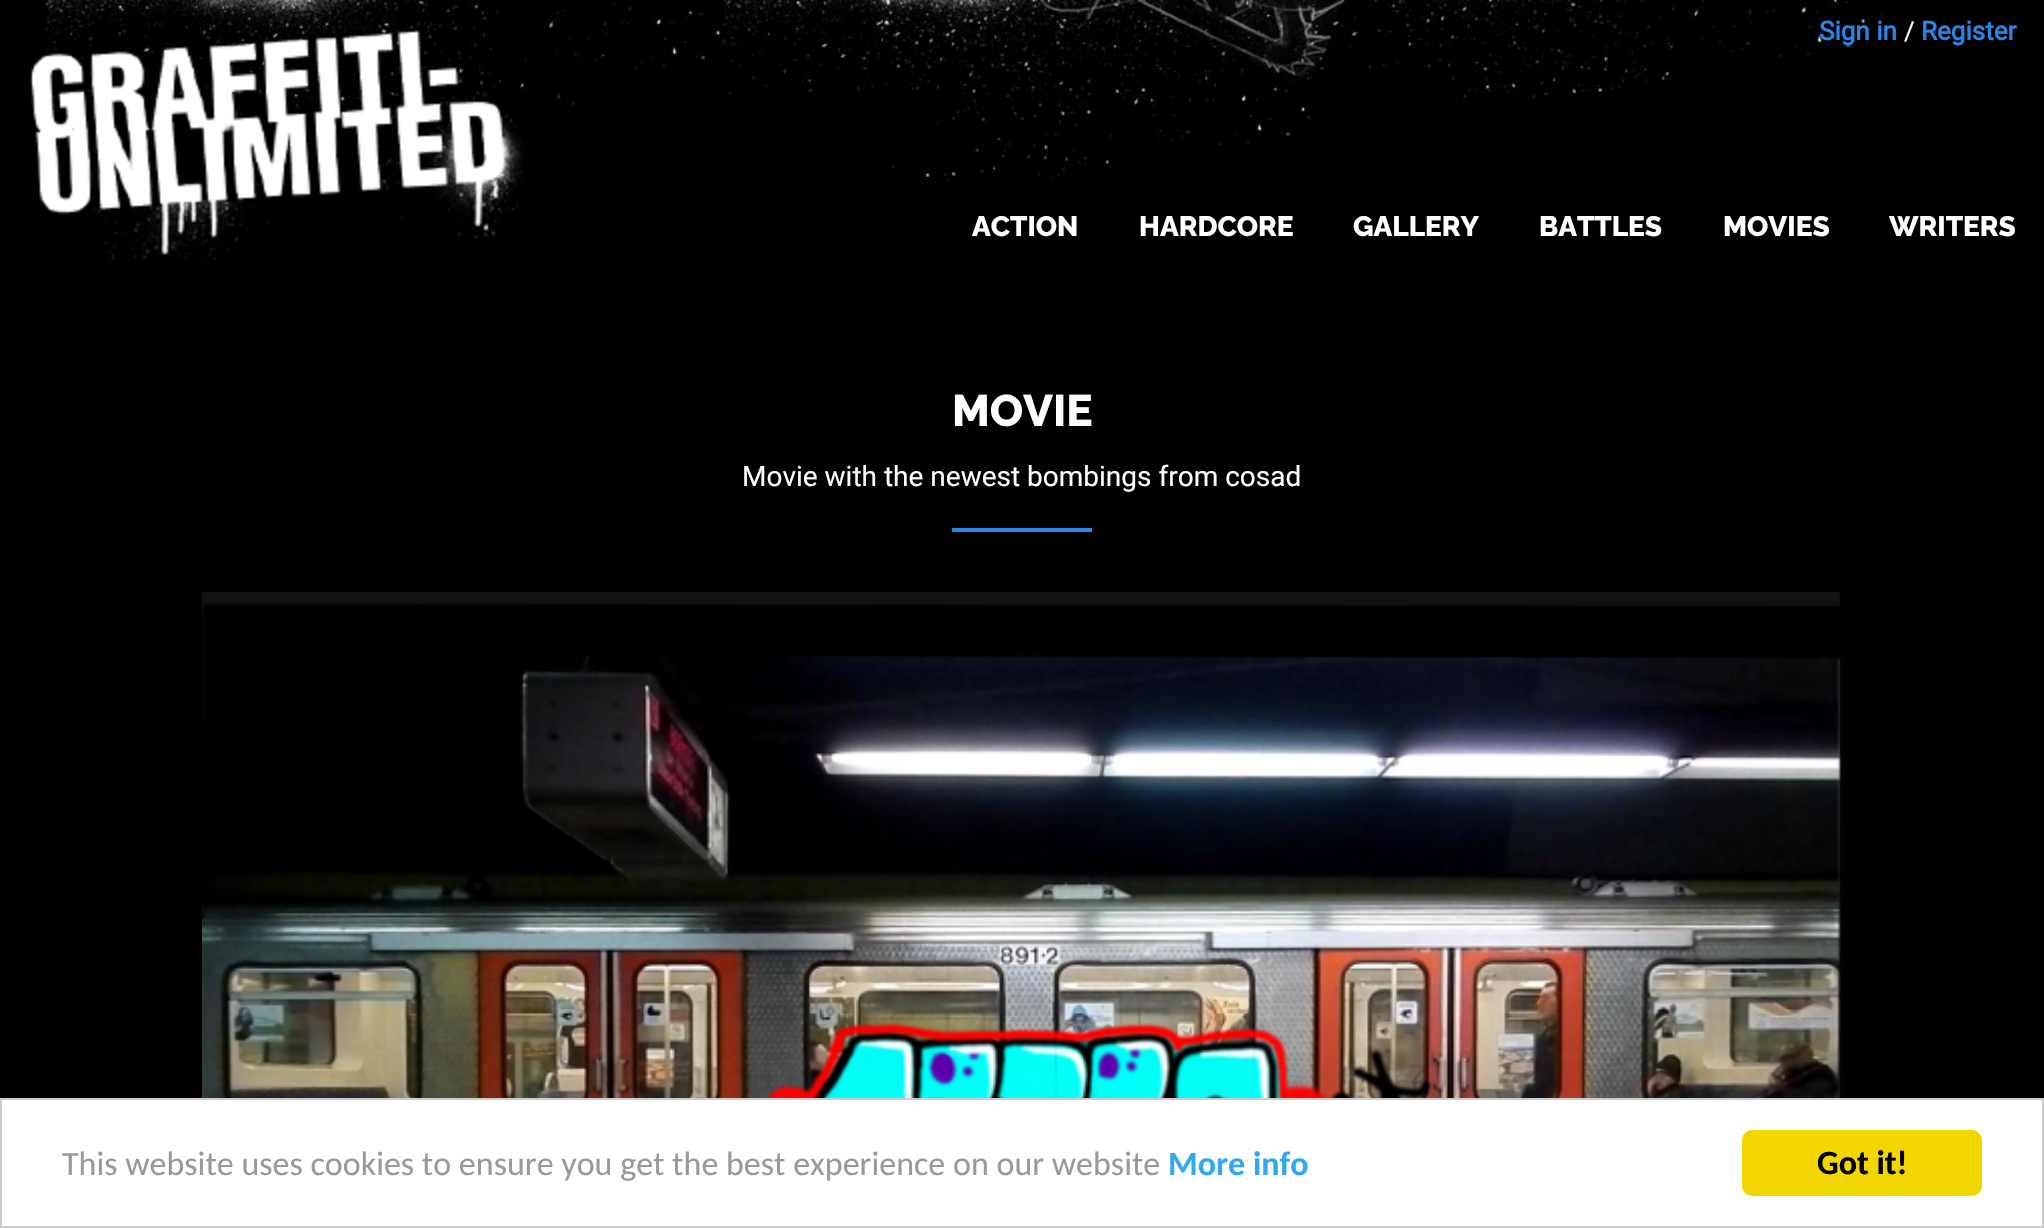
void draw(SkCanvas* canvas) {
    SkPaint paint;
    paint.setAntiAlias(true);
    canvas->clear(0xFF000000);
    canvas->drawImageRect(SkImages::DeferredFromEncodedData(SkData::MakeFromFileName("img1.png")), SkRect::MakeXYWH(43, 0, 1840, 184), SkSamplingOptions());
    canvas->drawImageRect(SkImages::DeferredFromEncodedData(SkData::MakeFromFileName("img2.png")), SkRect::MakeXYWH(30, 30, 550, 230), SkSamplingOptions());
    SkFont font1(fontMgr->matchFamilyStyle("Roboto", SkFontStyle::Bold()), 26);
    font1.setSubpixel(true);
    paint.setColor(0xFF2A85E8);
    canvas->drawString("Sign in", 1819, 40, font1, paint);
    SkFont font2(fontMgr->matchFamilyStyle("Roboto", SkFontStyle::Normal()), 26);
    font2.setSubpixel(true);
    paint.setColor(0xFFFFFFFF);
    canvas->drawString("/", 1904, 40, font2, paint);
    paint.setColor(0xFF2A85E8);
    canvas->drawString("Register", 1921, 40, font1, paint);
    SkFont font3(fontMgr->matchFamilyStyle("Raleway", SkFontStyle(800, SkFontStyle::kNormal_Width, SkFontStyle::kUpright_Slant)), 28);
    font3.setSubpixel(true);
    paint.setColor(0xFFFFFFFF);
    canvas->drawString("ACTION", 972, 236, font3, paint);
    canvas->drawString("HARDCORE", 1139, 236, font3, paint);
    canvas->drawString("GALLERY", 1353, 236, font3, paint);
    canvas->drawString("BATTLES", 1539, 236, font3, paint);
    canvas->drawString("MOVIES", 1723, 236, font3, paint);
    canvas->drawString("WRITERS", 1889, 236, font3, paint);
    SkFont font4(fontMgr->matchFamilyStyle("Raleway", SkFontStyle(800, SkFontStyle::kNormal_Width, SkFontStyle::kUpright_Slant)), 44);
    font4.setSubpixel(true);
    canvas->drawString("MOVIE", 952, 426, font4, paint);
    SkFont font5(fontMgr->matchFamilyStyle("Roboto", SkFontStyle::Normal()), 28);
    font5.setSubpixel(true);
    canvas->drawString("Movie with the newest bombings from cosad", 742, 486, font5, paint);
    paint.setColor(0xFF2A85E8);
    canvas->drawRect(SkRect::MakeXYWH(952, 528, 140, 4), paint);
    canvas->drawImageRect(SkImages::DeferredFromEncodedData(SkData::MakeFromFileName("img3.png")), SkRect::MakeXYWH(202, 592, 1639, 506), SkSamplingOptions());
    paint.setColor(0xFFFFFFFF);
    canvas->drawRect(SkRect::MakeXYWH(1, 1099, 2042, 128), paint);
    paint.setStyle(SkPaint::kStroke_Style);
    paint.setStrokeWidth(2);
    paint.setColor(0xFFCCCCCC);
    canvas->drawRect(SkRect::MakeXYWH(1, 1099, 2042, 128), paint);
    SkFont font6(fontMgr->matchFamilyStyle("Carlito", SkFontStyle::Normal()), 34);
    font6.setSubpixel(true);
    paint.setStyle(SkPaint::kFill_Style);
    paint.setColor(0xFF999999);
    canvas->drawString("This website uses cookies to ensure you get the best experience on our website", 62, 1175, font6, paint);
    SkFont font7(fontMgr->matchFamilyStyle("Carlito", SkFontStyle::Bold()), 34);
    font7.setSubpixel(true);
    paint.setColor(0xFF31A8F0);
    canvas->drawString("More info", 1168, 1175, font7, paint);
    paint.setColor(0xFFF1D600);
    canvas->drawRoundRect(SkRect::MakeXYWH(1742, 1130, 240, 66), 10, 10, paint);
    paint.setColor(0xFF000000);
    canvas->drawString("Got it!", 1817, 1174, font7, paint);
}
